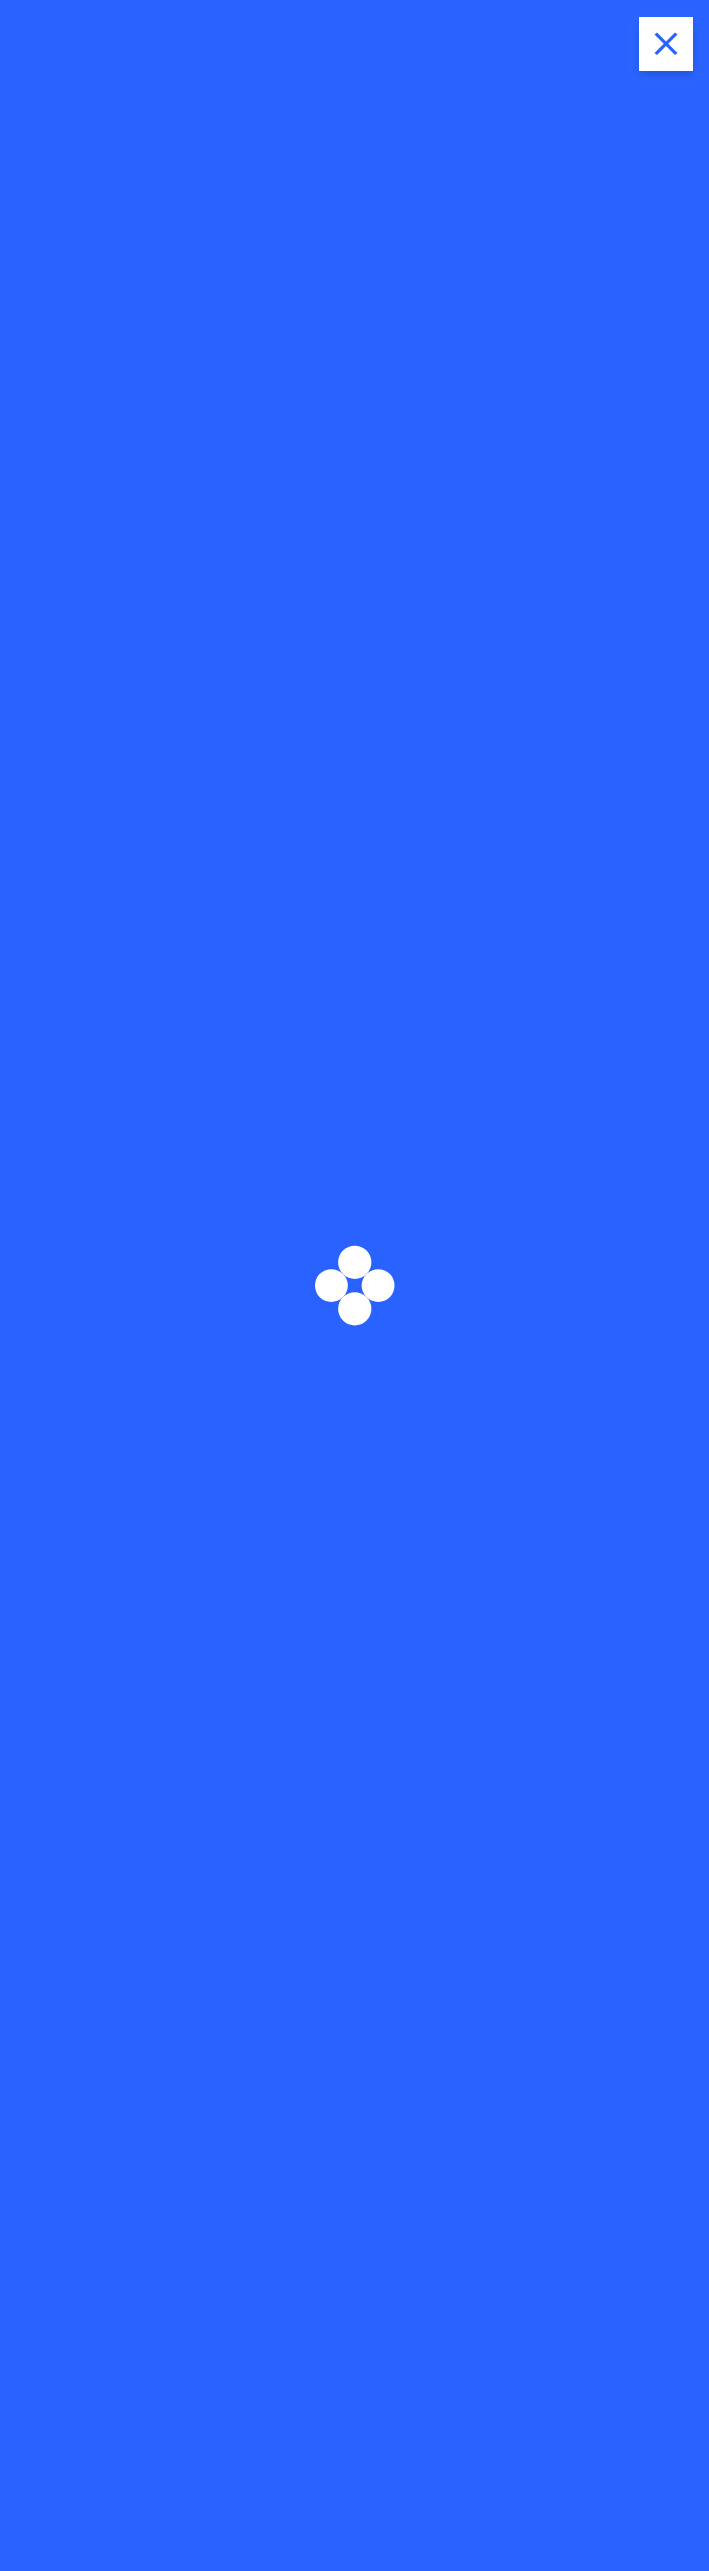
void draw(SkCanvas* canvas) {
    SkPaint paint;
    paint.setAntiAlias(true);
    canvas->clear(0xFF2962FF);
    paint.setColor(0x33070A19);
    paint.setMaskFilter(SkMaskFilter::MakeBlur(kNormal_SkBlurStyle, 4));
    canvas->drawRect(SkRect::MakeXYWH(641, 23, 51, 51), paint);
    paint.setMaskFilter(nullptr);
    paint.setColor(0xFFFFFFFF);
    canvas->drawRect(SkRect::MakeXYWH(639, 17, 54, 54), paint);
    paint.setColor(0xFF2962FF);
    canvas->drawPath(SkPathBuilder().moveTo(654.5f, 53).lineTo(675, 32.5f).lineTo(677.5f, 34.5f).lineTo(657, 55).close().detach(), paint);
    canvas->drawPath(SkPathBuilder().moveTo(675, 55).lineTo(654.5f, 34.5f).lineTo(657, 32.5f).lineTo(677.5f, 53).close().detach(), paint);
    paint.setColor(0xFFFFFFFF);
    canvas->drawPath(SkPathBuilder().moveTo(366.5f, 1250.5f).cubicTo(373, 1257, 373, 1267.5f, 366.5f, 1274).cubicTo(360, 1280.5f, 349.5f, 1280.5f, 343, 1274).cubicTo(336.5f, 1267.5f, 336.5f, 1257, 343, 1250.5f).cubicTo(349.5f, 1244, 360, 1244, 366.5f, 1250.5f).close().detach(), paint);
    canvas->drawPath(SkPathBuilder().moveTo(343, 1274).cubicTo(349.5f, 1280.5f, 349.5f, 1290.5f, 343, 1297).cubicTo(336.5f, 1303.5f, 326, 1303.5f, 319.5f, 1297).cubicTo(313.5f, 1290.5f, 313.5f, 1280.5f, 319.5f, 1274).cubicTo(326, 1267.5f, 336.5f, 1267.5f, 343, 1274).close().detach(), paint);
    canvas->drawPath(SkPathBuilder().moveTo(390, 1274).cubicTo(396, 1280.5f, 396, 1290.5f, 390, 1297).cubicTo(383.5f, 1303.5f, 373, 1303.5f, 366.5f, 1297).cubicTo(360, 1290.5f, 360, 1280.5f, 366.5f, 1274).cubicTo(373, 1267.5f, 383.5f, 1267.5f, 390, 1274).close().detach(), paint);
    canvas->drawPath(SkPathBuilder().moveTo(366.5f, 1297).cubicTo(373, 1303.5f, 373, 1314, 366.5f, 1320.5f).cubicTo(360, 1327, 349.5f, 1327, 343, 1320.5f).cubicTo(336.5f, 1314, 336.5f, 1303.5f, 343, 1297).cubicTo(349.5f, 1290.5f, 360, 1290.5f, 366.5f, 1297).close().detach(), paint);
}
